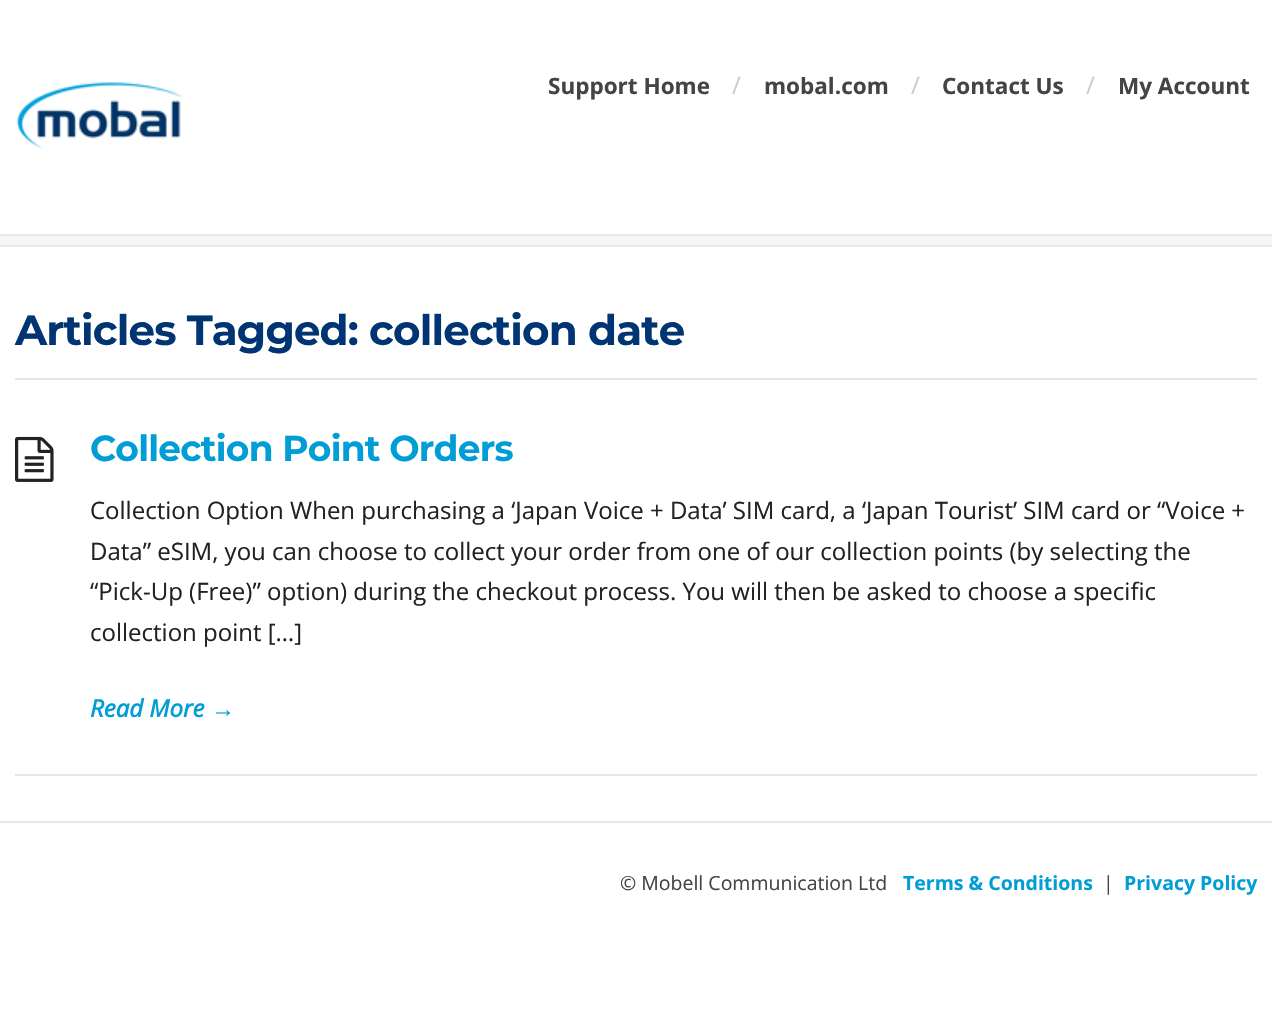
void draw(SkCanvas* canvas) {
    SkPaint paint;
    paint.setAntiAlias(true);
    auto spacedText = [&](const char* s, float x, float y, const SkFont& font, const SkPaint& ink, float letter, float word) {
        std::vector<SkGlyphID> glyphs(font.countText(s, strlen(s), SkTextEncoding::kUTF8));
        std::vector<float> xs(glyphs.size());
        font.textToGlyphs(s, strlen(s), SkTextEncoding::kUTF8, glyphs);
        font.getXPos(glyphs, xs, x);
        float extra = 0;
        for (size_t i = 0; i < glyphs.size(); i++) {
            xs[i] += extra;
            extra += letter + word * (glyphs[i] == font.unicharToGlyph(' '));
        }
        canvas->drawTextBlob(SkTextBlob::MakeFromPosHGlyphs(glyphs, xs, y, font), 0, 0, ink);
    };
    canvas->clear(0xFFFFFFFF);
    canvas->drawImageRect(SkImages::DeferredFromEncodedData(SkData::MakeFromFileName("img1.png")), SkRect::MakeXYWH(16, 82, 167, 67), SkSamplingOptions());
    SkFont font1(fontMgr->matchFamilyStyle("Open Sans", SkFontStyle::Bold()), 22.5f);
    font1.setSubpixel(true);
    paint.setColor(0xFF444444);
    canvas->drawString("Support Home", 548, 94, font1, paint);
    SkFont font2(fontMgr->matchFamilyStyle("Open Sans", SkFontStyle::Normal()), 24);
    font2.setSubpixel(true);
    paint.setColor(0xFFCCCCCC);
    canvas->drawString("/", 732, 94, font2, paint);
    paint.setColor(0xFF444444);
    canvas->drawString("mobal.com", 764, 94, font1, paint);
    paint.setColor(0xFFCCCCCC);
    canvas->drawString("/", 911, 94, font2, paint);
    paint.setColor(0xFF444444);
    canvas->drawString("Contact Us", 942, 94, font1, paint);
    paint.setColor(0xFFCCCCCC);
    canvas->drawString("/", 1086, 94, font2, paint);
    paint.setColor(0xFF444444);
    canvas->drawString("My Account", 1118, 94, font1, paint);
    paint.setColor(0xFFF5F5F5);
    canvas->drawRect(SkRect::MakeXYWH(0, 236, 1272, 9), paint);
    paint.setColor(0xFFE8E8E8);
    canvas->drawRect(SkRect::MakeXYWH(0, 234, 1272, 2), paint);
    canvas->drawRect(SkRect::MakeXYWH(0, 245, 1272, 2), paint);
    paint.setColor(0xFFE6E6E6);
    canvas->drawRect(SkRect::MakeXYWH(15, 378, 1242, 2), paint);
    SkFont font3(fontMgr->matchFamilyStyle("Montserrat", SkFontStyle::Bold()), 42);
    font3.setSubpixel(true);
    paint.setColor(0xFF003473);
    spacedText("Articles Tagged: collection date", 15, 345, font3, paint, -0.85f, 0);
    paint.setColor(0xFFE6E6E6);
    canvas->drawRect(SkRect::MakeXYWH(15, 774, 1242, 2), paint);
    canvas->drawImageRect(SkImages::DeferredFromEncodedData(SkData::MakeFromFileName("img2.png")), SkRect::MakeXYWH(15, 436, 39, 46), SkSamplingOptions());
    SkFont font4(fontMgr->matchFamilyStyle("Montserrat", SkFontStyle::Bold()), 36);
    font4.setSubpixel(true);
    paint.setColor(0xFF009DD6);
    spacedText("Collection Point Orders", 90, 461, font4, paint, -0.75f, 0);
    paint.setColor(0xFF222222);
    canvas->drawString("Collection Option When purchasing a ‘Japan Voice + Data’ SIM card, a ‘Japan Tourist’ SIM card or “Voice +", 90, 519, font2, paint);
    canvas->drawString("Data” eSIM, you can choose to collect your order from one of our collection points (by selecting the", 90, 560, font2, paint);
    canvas->drawString("“Pick-Up (Free)” option) during the checkout process. You will then be asked to choose a specific", 90, 600, font2, paint);
    canvas->drawString("collection point […]", 90, 641, font2, paint);
    SkFont font5(fontMgr->matchFamilyStyle("Open Sans", SkFontStyle::BoldItalic()), 24);
    font5.setSubpixel(true);
    paint.setColor(0xFF009DD6);
    canvas->drawString("Read More", 90, 717, font5, paint);
    SkFont font6(fontMgr->matchFamilyStyle("Liberation Sans", SkFontStyle::BoldItalic()), 24);
    font6.setSubpixel(true);
    canvas->drawString("→", 211, 717, font6, paint);
    paint.setColor(0xFFE6E6E6);
    canvas->drawRect(SkRect::MakeXYWH(0, 821, 1272, 2), paint);
    SkFont font7(fontMgr->matchFamilyStyle("Open Sans", SkFontStyle::Normal()), 19.5f);
    font7.setSubpixel(true);
    paint.setColor(0xFF444444);
    canvas->drawString("© Mobell Communication Ltd", 620, 890, font7, paint);
    SkFont font8(fontMgr->matchFamilyStyle("Open Sans", SkFontStyle::Bold()), 19.5f);
    font8.setSubpixel(true);
    paint.setColor(0xFF009DD6);
    canvas->drawString("Terms & Conditions", 903, 890, font8, paint);
    paint.setColor(0xFF444444);
    canvas->drawString("|", 1103, 890, font7, paint);
    paint.setColor(0xFF009DD6);
    canvas->drawString("Privacy Policy", 1124, 890, font8, paint);
}
